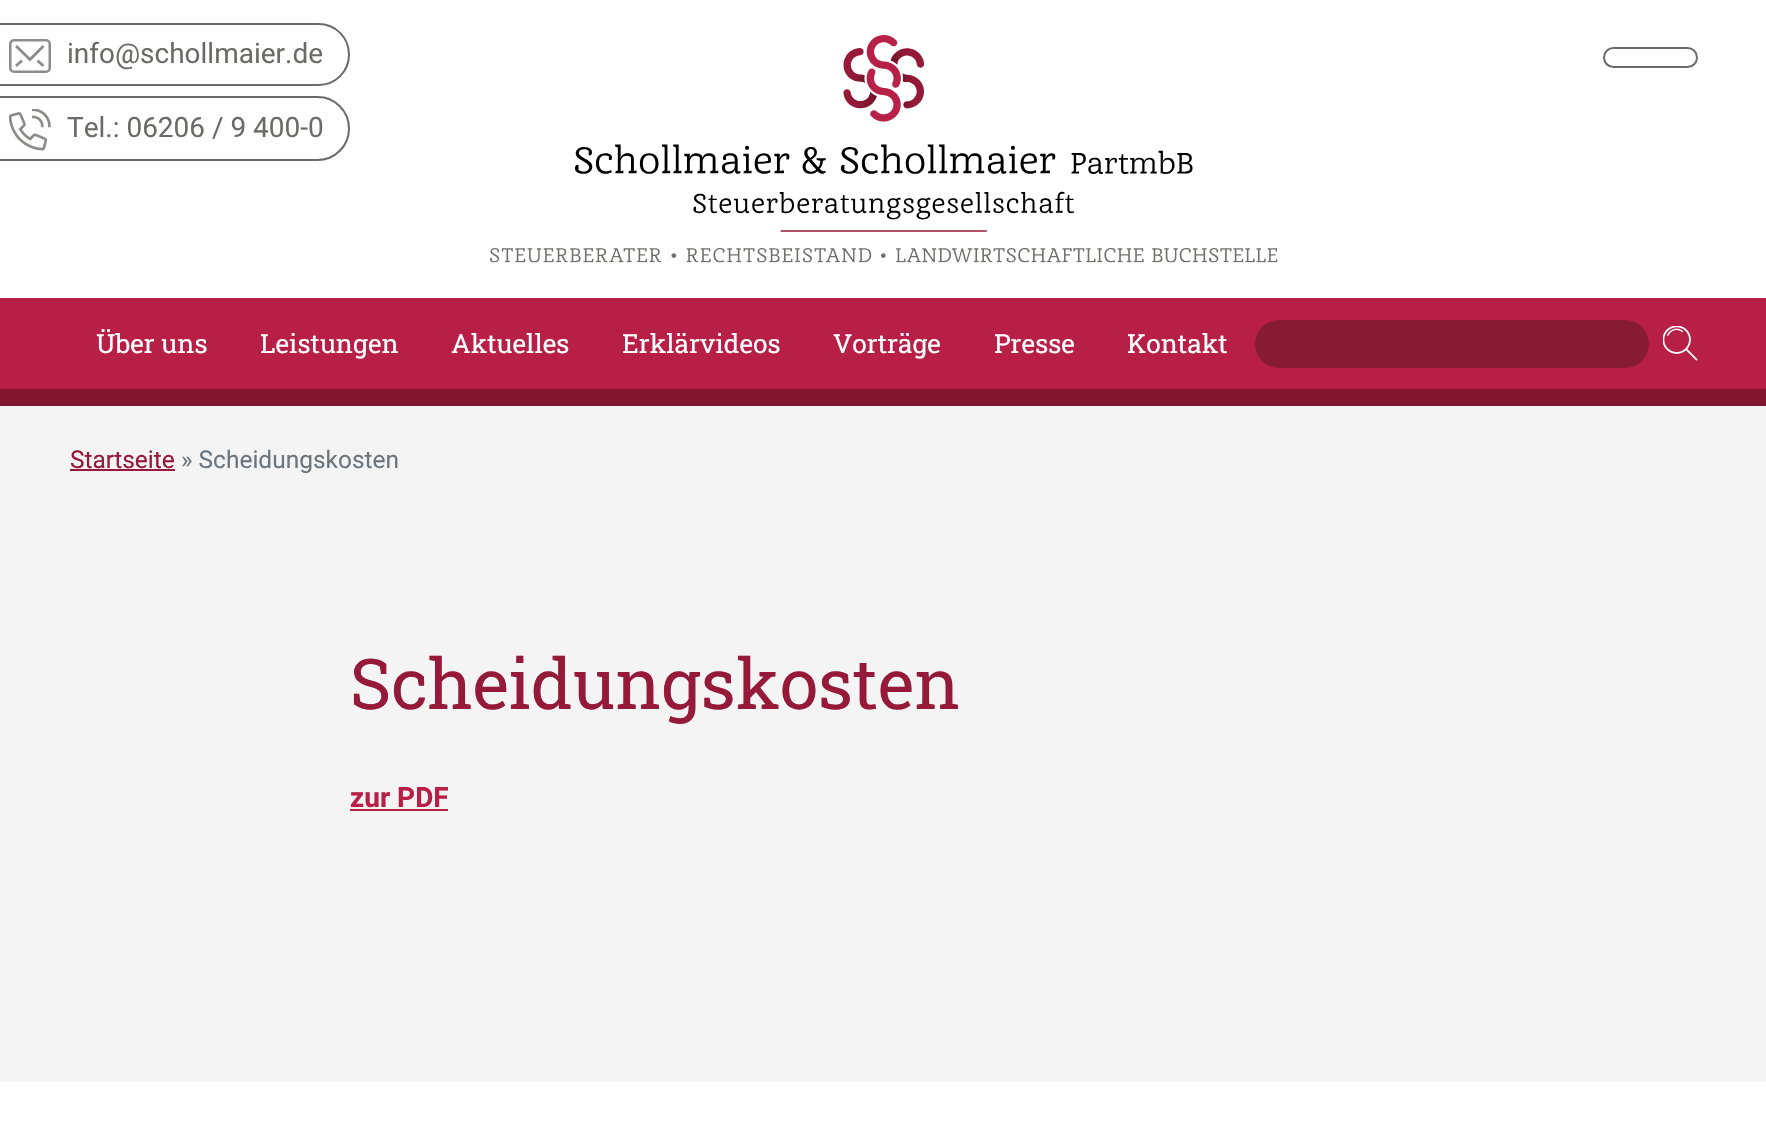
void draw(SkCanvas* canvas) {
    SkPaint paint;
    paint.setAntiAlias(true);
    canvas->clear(0xFFFFFFFF);
    paint.setStyle(SkPaint::kStroke_Style);
    paint.setStrokeWidth(2);
    paint.setColor(0xFF6E6969);
    canvas->drawPath(SkPathBuilder().moveTo(-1, 24).lineTo(318.5f, 24).cubicTo(335.5f, 24, 349, 37.5f, 349, 54.5f).cubicTo(349, 71.5f, 335.5f, 85, 318.5f, 85).lineTo(-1, 85).close().detach(), paint);
    paint.setStrokeWidth(2.7f);
    paint.setStrokeCap(SkPaint::kSquare_Cap);
    paint.setColor(0xFF8F8B8B);
    canvas->drawPath(SkPathBuilder().moveTo(42.5f, 47).lineTo(30, 59.5f).lineTo(17, 47).detach(), paint);
    paint.setStrokeWidth(2.5f);
    paint.setStrokeCap(SkPaint::kButt_Cap);
    canvas->drawRoundRect(SkRect::MakeXYWH(10.25f, 40.25f, 39.5f, 31.5f), 3.75f, 3.75f, paint);
    SkFont font1(fontMgr->matchFamilyStyle("Roboto", SkFontStyle::Normal()), 28);
    font1.setSubpixel(true);
    paint.setStyle(SkPaint::kFill_Style);
    paint.setColor(0xFF6E6969);
    canvas->drawString("info@schollmaier.de", 67, 63, font1, paint);
    paint.setStyle(SkPaint::kStroke_Style);
    paint.setStrokeWidth(2.7f);
    paint.setStrokeCap(SkPaint::kSquare_Cap);
    paint.setColor(0xFF8F8B8B);
    canvas->drawPath(SkPathBuilder().moveTo(21, 61.5f).lineTo(17, 65).moveTo(38.5f, 61.5f).lineTo(42.5f, 65).detach(), paint);
    paint.setStrokeWidth(2);
    paint.setStrokeCap(SkPaint::kButt_Cap);
    paint.setColor(0xFF6E6969);
    canvas->drawPath(SkPathBuilder().moveTo(-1, 97).lineTo(317.5f, 97).cubicTo(335, 97, 349, 111, 349, 128.5f).cubicTo(349, 146, 335, 160, 317.5f, 160).lineTo(-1, 160).close().detach(), paint);
    canvas->drawImageRect(SkImages::DeferredFromEncodedData(SkData::MakeFromFileName("img1.png")), SkRect::MakeXYWH(9, 109, 42, 42), SkSamplingOptions());
    paint.setStyle(SkPaint::kFill_Style);
    canvas->drawString("Tel.: 06206 / 9 400-0", 67, 137, font1, paint);
    canvas->drawImageRect(SkImages::DeferredFromEncodedData(SkData::MakeFromFileName("img2.png")), SkRect::MakeXYWH(490, 35, 788, 228), SkSamplingOptions());
    paint.setStyle(SkPaint::kStroke_Style);
    canvas->drawRoundRect(SkRect::MakeXYWH(1604, 48, 93, 19), 9.5f, 9.5f, paint);
    paint.setStyle(SkPaint::kFill_Style);
    paint.setColor(0xFFB71F47);
    canvas->drawRect(SkRect::MakeXYWH(0, 298, 1766, 91), paint);
    paint.setColor(0xFF81142F);
    canvas->drawRect(SkRect::MakeXYWH(0, 389, 1766, 17), paint);
    SkFont font2(fontMgr->matchFamilyStyle("Roboto Slab", SkFontStyle::Normal()), 26.25f);
    font2.setSubpixel(true);
    paint.setColor(0xFFFFFFFF);
    canvas->drawString("Über uns", 96, 353, font2, paint);
    canvas->drawString("Leistungen", 260, 353, font2, paint);
    canvas->drawString("Aktuelles", 451, 353, font2, paint);
    canvas->drawString("Erklärvideos", 622, 353, font2, paint);
    canvas->drawString("Vorträge", 833, 353, font2, paint);
    canvas->drawString("Presse", 994, 353, font2, paint);
    canvas->drawString("Kontakt", 1127, 353, font2, paint);
    paint.setColor(0xFF871B35);
    canvas->drawRoundRect(SkRect::MakeXYWH(1255, 320, 394, 48), 24, 24, paint);
    canvas->drawImageRect(SkImages::DeferredFromEncodedData(SkData::MakeFromFileName("img3.png")), SkRect::MakeXYWH(1663, 326, 35, 35), SkSamplingOptions());
    paint.setColor(0xFFF4F4F4);
    canvas->drawRect(SkRect::MakeXYWH(0, 406, 1766, 676), paint);
    SkFont font3(fontMgr->matchFamilyStyle("Roboto", SkFontStyle::Normal()), 24.5f);
    font3.setSubpixel(true);
    paint.setColor(0xFF951938);
    canvas->drawString("Startseite", 70, 468, font3, paint);
    canvas->drawRect(SkRect::MakeXYWH(70, 469, 105, 2), paint);
    paint.setColor(0xFF6C757D);
    canvas->drawString("» Scheidungskosten", 181, 468, font3, paint);
    SkFont font4(fontMgr->matchFamilyStyle("Roboto Slab", SkFontStyle::Normal()), 70);
    font4.setSubpixel(true);
    paint.setColor(0xFF951938);
    canvas->drawString("Scheidungskosten", 350, 709, font4, paint);
    SkFont font5(fontMgr->matchFamilyStyle("Roboto", SkFontStyle::Bold()), 28);
    font5.setSubpixel(true);
    paint.setColor(0xFFB71F46);
    canvas->drawString("zur PDF", 350, 807, font5, paint);
    canvas->drawRect(SkRect::MakeXYWH(350, 809, 98, 2), paint);
}
